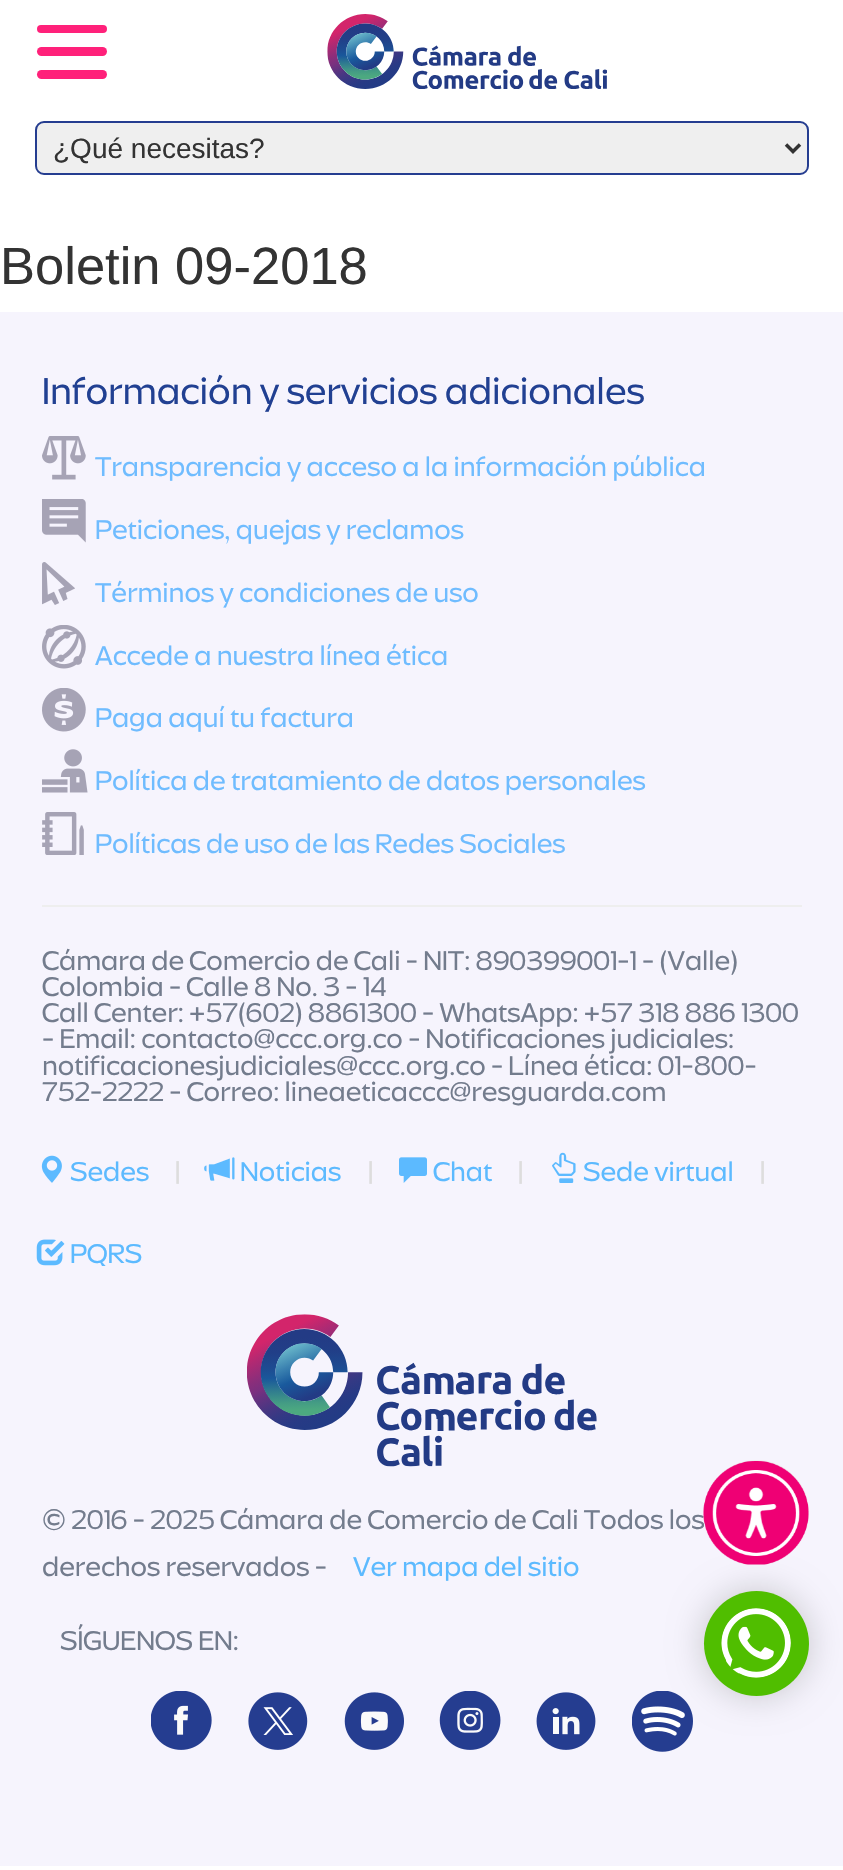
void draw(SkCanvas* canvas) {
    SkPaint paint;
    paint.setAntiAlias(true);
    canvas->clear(0xFFFFFFFF);
    paint.setColor(0xFFFF217A);
    canvas->drawRoundRect(SkRect::MakeXYWH(37, 25, 70, 8), 4, 4, paint);
    canvas->drawRoundRect(SkRect::MakeXYWH(37, 47, 70, 9), 4.5f, 4.5f, paint);
    canvas->drawRoundRect(SkRect::MakeXYWH(37, 70, 70, 9), 4.5f, 4.5f, paint);
    canvas->drawImageRect(SkImages::DeferredFromEncodedData(SkData::MakeFromFileName("img1.png")), SkRect::MakeXYWH(327, 14, 280, 75), SkSamplingOptions());
    paint.setColor(0xFFEFEFEF);
    canvas->drawRoundRect(SkRect::MakeXYWH(36, 122, 772, 52), 8, 8, paint);
    paint.setStyle(SkPaint::kStroke_Style);
    paint.setStrokeWidth(2);
    paint.setColor(0xFF253D90);
    canvas->drawRoundRect(SkRect::MakeXYWH(36, 122, 772, 52), 8, 8, paint);
    paint.setStrokeWidth(3.5f);
    paint.setColor(0xFF333333);
    canvas->drawPath(SkPathBuilder().moveTo(786, 144.5f).lineTo(793, 151.5f).lineTo(800, 144.5f).detach(), paint);
    SkFont font1(fontMgr->matchFamilyStyle("Liberation Sans", SkFontStyle::Normal()), 28);
    font1.setSubpixel(true);
    paint.setStyle(SkPaint::kFill_Style);
    canvas->drawString("¿Qué necesitas?", 53, 158, font1, paint);
    SkFont font2(fontMgr->matchFamilyStyle("Liberation Sans", SkFontStyle::Normal()), 52.5f);
    font2.setSubpixel(true);
    canvas->drawString("Boletin 09-2018", 0, 284, font2, paint);
    paint.setColor(0xFFF6F4FD);
    canvas->drawRect(SkRect::MakeXYWH(0, 312, 843, 1554), paint);
    SkFont font3(fontMgr->matchFamilyStyle("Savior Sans", SkFontStyle(300, SkFontStyle::kNormal_Width, SkFontStyle::kUpright_Slant)), 38.5f);
    font3.setSubpixel(true);
    paint.setColor(0xFF214092);
    canvas->drawString("Información y servicios adicionales", 42, 404, font3, paint);
    canvas->drawImageRect(SkImages::DeferredFromEncodedData(SkData::MakeFromFileName("img2.png")), SkRect::MakeXYWH(42, 436, 44, 44), SkSamplingOptions());
    SkFont font4(fontMgr->matchFamilyStyle("Savior Sans", SkFontStyle(300, SkFontStyle::kNormal_Width, SkFontStyle::kUpright_Slant)), 28);
    font4.setSubpixel(true);
    paint.setColor(0xFF6FBCFF);
    canvas->drawString("Transparencia y acceso a la información pública", 95, 476, font4, paint);
    canvas->drawImageRect(SkImages::DeferredFromEncodedData(SkData::MakeFromFileName("img3.png")), SkRect::MakeXYWH(42, 499, 44, 44), SkSamplingOptions());
    canvas->drawString("Peticiones, quejas y reclamos", 95, 539, font4, paint);
    canvas->drawImageRect(SkImages::DeferredFromEncodedData(SkData::MakeFromFileName("img4.png")), SkRect::MakeXYWH(42, 562, 33, 43), SkSamplingOptions());
    canvas->drawString("Términos y condiciones de uso", 95, 602, font4, paint);
    canvas->drawImageRect(SkImages::DeferredFromEncodedData(SkData::MakeFromFileName("img5.png")), SkRect::MakeXYWH(42, 625, 44, 44), SkSamplingOptions());
    canvas->drawString("Accede a nuestra línea ética", 95, 665, font4, paint);
    canvas->drawImageRect(SkImages::DeferredFromEncodedData(SkData::MakeFromFileName("img6.png")), SkRect::MakeXYWH(42, 688, 44, 44), SkSamplingOptions());
    canvas->drawString("Paga aquí tu factura", 95, 727, font4, paint);
    canvas->drawImageRect(SkImages::DeferredFromEncodedData(SkData::MakeFromFileName("img7.png")), SkRect::MakeXYWH(42, 749, 46, 44), SkSamplingOptions());
    canvas->drawString("Política de tratamiento de datos personales", 95, 790, font4, paint);
    canvas->drawImageRect(SkImages::DeferredFromEncodedData(SkData::MakeFromFileName("img8.png")), SkRect::MakeXYWH(42, 812, 42, 43), SkSamplingOptions());
    canvas->drawString("Políticas de uso de las Redes Sociales", 95, 853, font4, paint);
    paint.setColor(0xFFEEEEEE);
    canvas->drawRect(SkRect::MakeXYWH(42, 905, 760, 2), paint);
    paint.setColor(0xFF737C8D);
    canvas->drawString("Cámara de Comercio de Cali - NIT: 890399001-1 - (Valle)", 42, 970, font4, paint);
    canvas->drawString("Colombia - Calle 8 No. 3 - 14", 42, 996, font4, paint);
    canvas->drawString("Call Center: +57(602) 8861300 - WhatsApp: +57 318 886 1300", 42, 1022, font4, paint);
    canvas->drawString("- Email: contacto@ccc.org.co - Notificaciones judiciales:", 42, 1048, font4, paint);
    canvas->drawString("notificacionesjudiciales@ccc.org.co - Línea ética: 01-800-", 42, 1075, font4, paint);
    canvas->drawString("752-2222 - Correo: lineaeticaccc@resguarda.com", 42, 1101, font4, paint);
    canvas->drawImageRect(SkImages::DeferredFromEncodedData(SkData::MakeFromFileName("img9.png")), SkRect::MakeXYWH(41, 1155, 21, 28), SkSamplingOptions());
    paint.setColor(0xFF5CBAFF);
    canvas->drawString("Sedes", 70, 1181, font4, paint);
    paint.setColor(0xFFDDDDDD);
    canvas->drawString("|", 175, 1181, font4, paint);
    canvas->drawImageRect(SkImages::DeferredFromEncodedData(SkData::MakeFromFileName("img10.png")), SkRect::MakeXYWH(204, 1157, 31, 24), SkSamplingOptions());
    paint.setColor(0xFF5CBAFF);
    canvas->drawString("Noticias", 240, 1181, font4, paint);
    paint.setColor(0xFFDDDDDD);
    canvas->drawString("|", 368, 1181, font4, paint);
    canvas->drawImageRect(SkImages::DeferredFromEncodedData(SkData::MakeFromFileName("img11.png")), SkRect::MakeXYWH(399, 1157, 28, 26), SkSamplingOptions());
    paint.setColor(0xFF5CBAFF);
    canvas->drawString("Chat", 433, 1181, font4, paint);
    paint.setColor(0xFFDDDDDD);
    canvas->drawString("|", 518, 1181, font4, paint);
    canvas->drawImageRect(SkImages::DeferredFromEncodedData(SkData::MakeFromFileName("img12.png")), SkRect::MakeXYWH(552, 1152, 24, 31), SkSamplingOptions());
    paint.setColor(0xFF5CBAFF);
    canvas->drawString("Sede virtual", 583, 1181, font4, paint);
    paint.setColor(0xFFDDDDDD);
    canvas->drawString("|", 760, 1181, font4, paint);
    canvas->drawImageRect(SkImages::DeferredFromEncodedData(SkData::MakeFromFileName("img13.png")), SkRect::MakeXYWH(36, 1239, 29, 27), SkSamplingOptions());
    paint.setColor(0xFF5CBAFF);
    canvas->drawString("PQRS", 70, 1263, font4, paint);
    canvas->drawImageRect(SkImages::DeferredFromEncodedData(SkData::MakeFromFileName("img14.png")), SkRect::MakeXYWH(247, 1314, 350, 153), SkSamplingOptions());
    paint.setColor(0xFF737C8D);
    canvas->drawString("© 2016 - 2025 Cámara de Comercio de Cali Todos los", 42, 1529, font4, paint);
    canvas->drawString("derechos reservados -", 42, 1576, font4, paint);
    paint.setColor(0xFF5CBAFF);
    canvas->drawString("Ver mapa del sitio", 353, 1576, font4, paint);
    paint.setColor(0xFF737C8D);
    canvas->drawString("SÍGUENOS EN:", 60, 1650, font4, paint);
    canvas->drawImageRect(SkImages::DeferredFromEncodedData(SkData::MakeFromFileName("img15.png")), SkRect::MakeXYWH(151, 1691, 61, 59), SkSamplingOptions());
    canvas->drawImageRect(SkImages::DeferredFromEncodedData(SkData::MakeFromFileName("img16.png")), SkRect::MakeXYWH(248, 1692, 60, 58), SkSamplingOptions());
    canvas->drawImageRect(SkImages::DeferredFromEncodedData(SkData::MakeFromFileName("img17.png")), SkRect::MakeXYWH(344, 1692, 60, 58), SkSamplingOptions());
    canvas->drawImageRect(SkImages::DeferredFromEncodedData(SkData::MakeFromFileName("img18.png")), SkRect::MakeXYWH(439, 1691, 62, 59), SkSamplingOptions());
    canvas->drawImageRect(SkImages::DeferredFromEncodedData(SkData::MakeFromFileName("img19.png")), SkRect::MakeXYWH(536, 1692, 60, 58), SkSamplingOptions());
    canvas->drawImageRect(SkImages::DeferredFromEncodedData(SkData::MakeFromFileName("img20.png")), SkRect::MakeXYWH(632, 1691, 61, 61), SkSamplingOptions());
    paint.setColor(0x33000000);
    paint.setMaskFilter(SkMaskFilter::MakeBlur(kNormal_SkBlurStyle, 17.5f));
    canvas->drawRoundRect(SkRect::MakeXYWH(704, 1591, 105, 105), 52.5f, 52.5f, paint);
    paint.setMaskFilter(nullptr);
    paint.setColor(0xFFEFEFEF);
    canvas->drawCircle(756.5f, 1512.5f, 52.5f, paint);
    canvas->drawImageRect(SkImages::DeferredFromEncodedData(SkData::MakeFromFileName("img21.png")), SkRect::MakeXYWH(703, 1461, 106, 104), SkSamplingOptions());
    paint.setColor(0xFF50BE00);
    canvas->drawCircle(756.5f, 1643.5f, 52.5f, paint);
    canvas->drawImageRect(SkImages::DeferredFromEncodedData(SkData::MakeFromFileName("img22.png")), SkRect::MakeXYWH(721, 1608, 70, 70), SkSamplingOptions());
}
